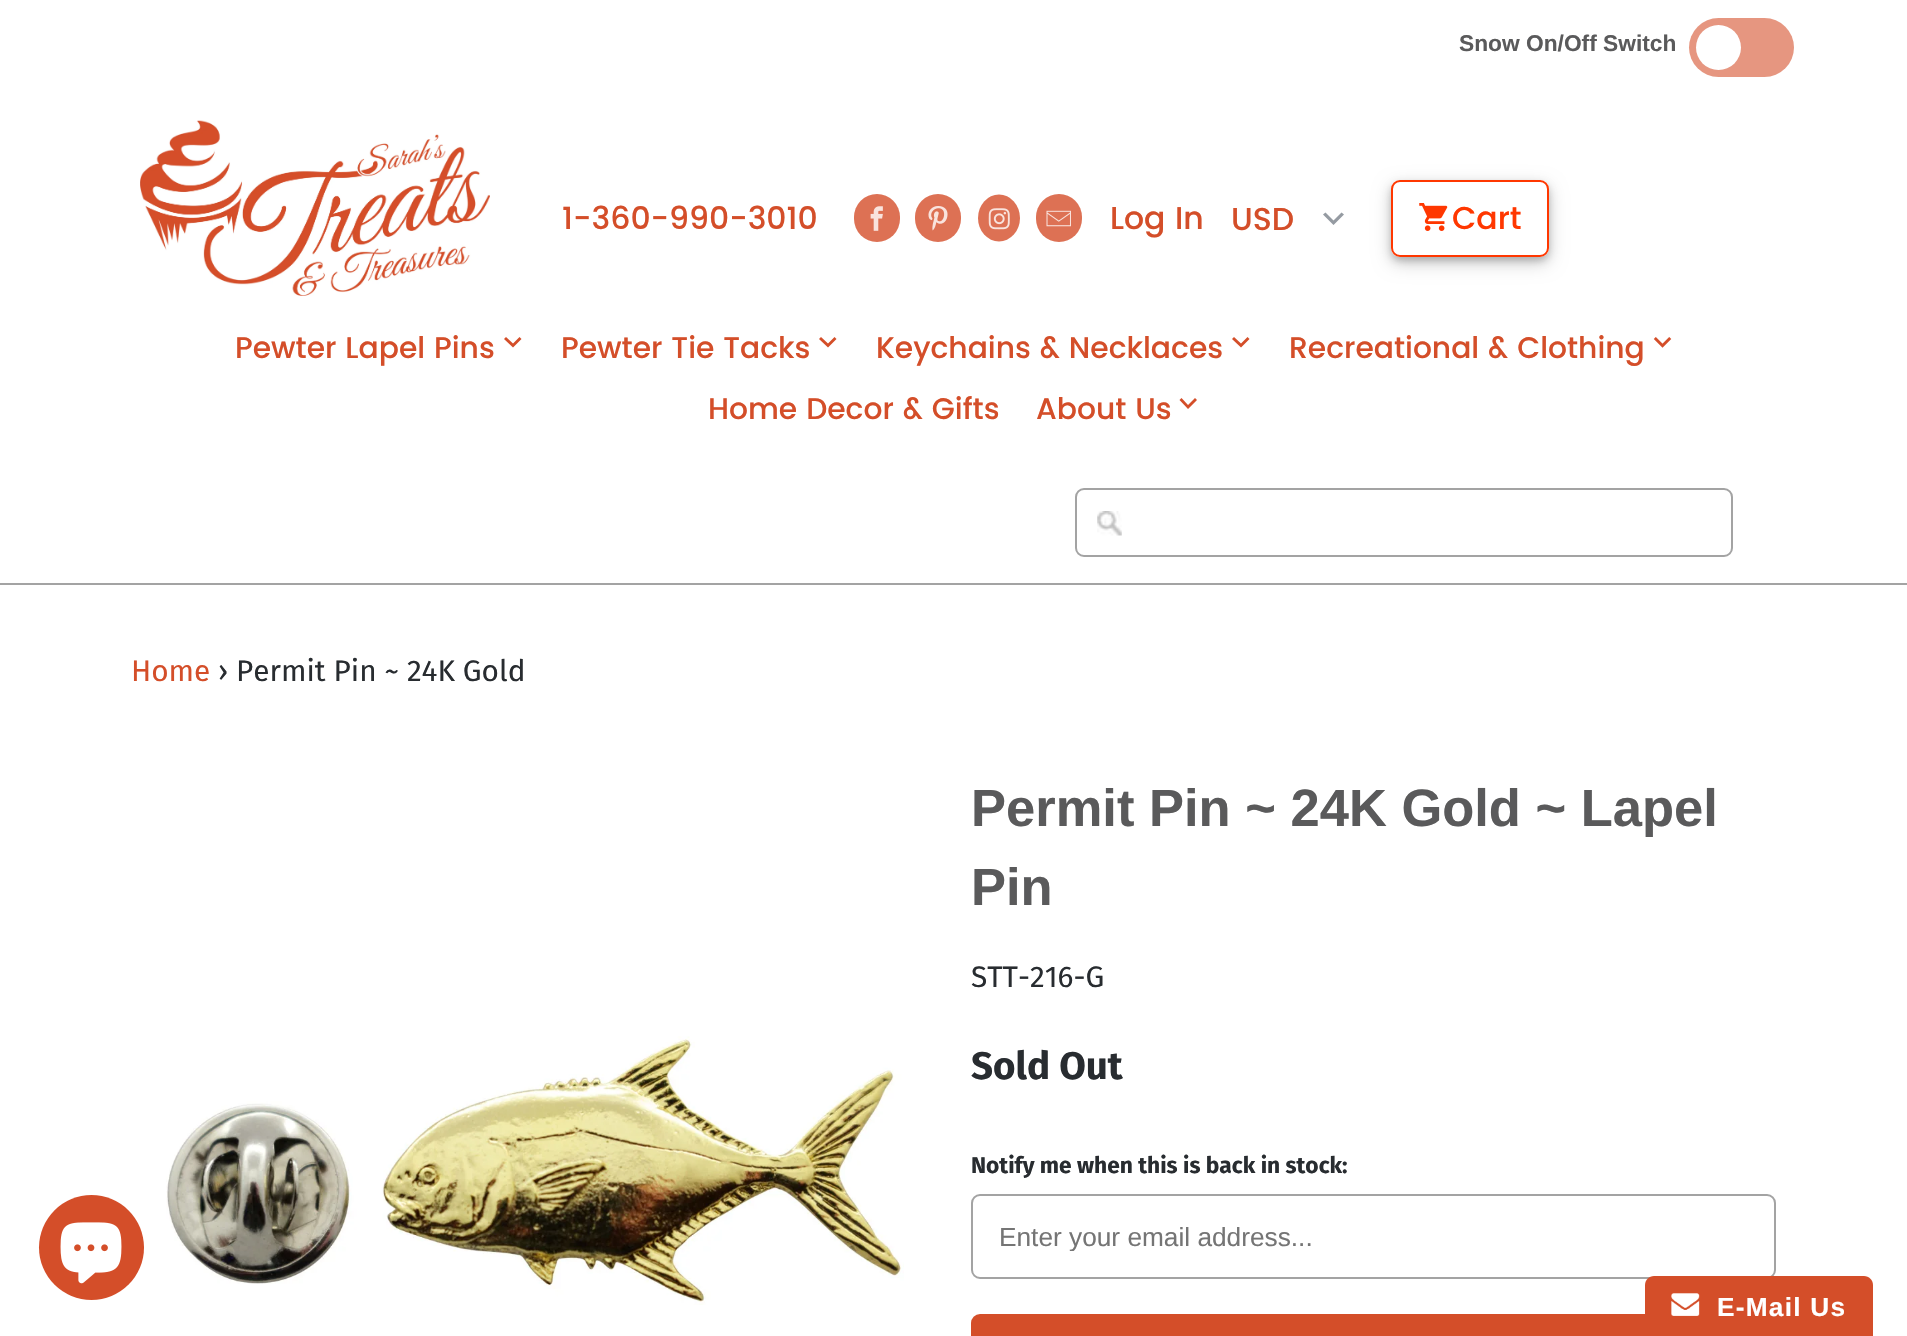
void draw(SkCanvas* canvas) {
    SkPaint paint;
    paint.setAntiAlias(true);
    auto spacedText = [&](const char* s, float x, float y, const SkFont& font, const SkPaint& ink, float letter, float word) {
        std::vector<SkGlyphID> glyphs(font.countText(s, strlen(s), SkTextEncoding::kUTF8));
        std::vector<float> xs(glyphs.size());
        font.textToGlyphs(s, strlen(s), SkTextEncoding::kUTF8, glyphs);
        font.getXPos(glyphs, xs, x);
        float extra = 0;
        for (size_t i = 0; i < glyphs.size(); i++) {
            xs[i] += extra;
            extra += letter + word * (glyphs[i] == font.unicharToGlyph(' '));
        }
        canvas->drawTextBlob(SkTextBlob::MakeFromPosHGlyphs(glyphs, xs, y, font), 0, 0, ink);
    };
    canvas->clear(0xFFFFFFFF);
    paint.setColor(0xFFA3A3A3);
    canvas->drawRect(SkRect::MakeXYWH(0, 583, 1907, 2), paint);
    SkFont font1(fontMgr->matchFamilyStyle("Liberation Sans", SkFontStyle::Bold()), 22.75f);
    font1.setSubpixel(true);
    paint.setColor(0xFF5A5A5B);
    canvas->drawString("Snow On/Off Switch", 1459, 51, font1, paint);
    paint.setColor(0xFFE69680);
    canvas->drawRoundRect(SkRect::MakeXYWH(1689, 18, 105, 59), 29.5f, 29.5f, paint);
    paint.setColor(0xFFFFFFFF);
    canvas->drawCircle(1718.5f, 47.5f, 22.5f, paint);
    canvas->drawImageRect(SkImages::DeferredFromEncodedData(SkData::MakeFromFileName("img1.png")), SkRect::MakeXYWH(140, 120, 350, 176), SkSamplingOptions());
    SkFont font2(fontMgr->matchFamilyStyle("Poppins", SkFontStyle(500, SkFontStyle::kNormal_Width, SkFontStyle::kUpright_Slant)), 31.5f);
    font2.setSubpixel(true);
    paint.setColor(0xFFD44E29);
    canvas->drawString("1-360-990-3010", 562, 229, font2, paint);
    paint.setColor(0xFFDD7154);
    canvas->drawRoundRect(SkRect::MakeXYWH(854, 194, 46, 48), 23, 23, paint);
    canvas->drawImageRect(SkImages::DeferredFromEncodedData(SkData::MakeFromFileName("img2.png")), SkRect::MakeXYWH(870, 206, 13, 25), SkSamplingOptions());
    canvas->drawRoundRect(SkRect::MakeXYWH(915, 194, 46, 48), 23, 23, paint);
    canvas->drawImageRect(SkImages::DeferredFromEncodedData(SkData::MakeFromFileName("img3.png")), SkRect::MakeXYWH(928, 206, 20, 25), SkSamplingOptions());
    canvas->drawOval(SkRect::MakeXYWH(978, 194.5f, 42, 47), paint);
    canvas->drawImageRect(SkImages::DeferredFromEncodedData(SkData::MakeFromFileName("img4.png")), SkRect::MakeXYWH(988, 208, 22, 22), SkSamplingOptions());
    canvas->drawRoundRect(SkRect::MakeXYWH(1036, 194, 46, 48), 23, 23, paint);
    canvas->drawImageRect(SkImages::DeferredFromEncodedData(SkData::MakeFromFileName("img5.png")), SkRect::MakeXYWH(1046, 210, 25, 17), SkSamplingOptions());
    paint.setColor(0xFFD44E29);
    canvas->drawString("Log In", 1110, 229, font2, paint);
    paint.setColor(0xFF959BA2);
    canvas->drawPath(SkPathBuilder().moveTo(1341.5f, 212.5f).lineTo(1333.5f, 220.5f).lineTo(1325.5f, 212.5f).lineTo(1323, 214.5f).lineTo(1333.5f, 225).lineTo(1344, 214.5f).close().detach(), paint);
    paint.setColor(0xFFD44E29);
    canvas->drawString("USD", 1231, 230, font2, paint);
    canvas->save();
    canvas->clipPath(SkPathBuilder(SkPathFillType::kEvenOdd).moveTo(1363, 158).lineTo(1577, 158).lineTo(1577, 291).lineTo(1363, 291).close().moveTo(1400, 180).lineTo(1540, 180).cubicTo(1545, 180, 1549, 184, 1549, 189).lineTo(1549, 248).cubicTo(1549, 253, 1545, 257, 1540, 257).lineTo(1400, 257).cubicTo(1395, 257, 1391, 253, 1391, 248).lineTo(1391, 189).cubicTo(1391, 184, 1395, 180, 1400, 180).close().detach(), true);
    paint.setColor(0x30000000);
    paint.setMaskFilter(SkMaskFilter::MakeBlur(kNormal_SkBlurStyle, 9));
    canvas->drawRoundRect(SkRect::MakeXYWH(1391, 186, 158, 77), 9, 9, paint);
    paint.setMaskFilter(nullptr);
    canvas->restore();
    canvas->save();
    canvas->clipPath(SkPathBuilder(SkPathFillType::kEvenOdd).moveTo(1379, 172).lineTo(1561, 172).lineTo(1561, 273).lineTo(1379, 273).close().moveTo(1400, 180).lineTo(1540, 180).cubicTo(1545, 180, 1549, 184, 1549, 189).lineTo(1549, 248).cubicTo(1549, 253, 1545, 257, 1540, 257).lineTo(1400, 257).cubicTo(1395, 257, 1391, 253, 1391, 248).lineTo(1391, 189).cubicTo(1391, 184, 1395, 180, 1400, 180).close().detach(), true);
    paint.setColor(0x33000000);
    paint.setMaskFilter(SkMaskFilter::MakeBlur(kNormal_SkBlurStyle, 3.5f));
    canvas->drawRoundRect(SkRect::MakeXYWH(1391, 184, 158, 77), 9, 9, paint);
    paint.setMaskFilter(nullptr);
    canvas->restore();
    paint.setStyle(SkPaint::kStroke_Style);
    paint.setStrokeWidth(2);
    paint.setColor(0xFFFF3700);
    canvas->drawRoundRect(SkRect::MakeXYWH(1392, 181, 156, 75), 8, 8, paint);
    canvas->drawImageRect(SkImages::DeferredFromEncodedData(SkData::MakeFromFileName("img6.png")), SkRect::MakeXYWH(1419, 203, 29, 28), SkSamplingOptions());
    paint.setStyle(SkPaint::kFill_Style);
    canvas->drawString("Cart", 1452, 229, font2, paint);
    SkFont font3(fontMgr->matchFamilyStyle("Poppins", SkFontStyle(500, SkFontStyle::kNormal_Width, SkFontStyle::kUpright_Slant)), 29.75f);
    font3.setSubpixel(true);
    paint.setColor(0xFFD44E29);
    canvas->drawString("Pewter Lapel Pins", 235, 358, font3, paint);
    canvas->drawPath(SkPathBuilder().moveTo(519.5f, 337).lineTo(513, 343.5f).lineTo(506, 337).lineTo(504, 339).lineTo(513, 347.5f).lineTo(521.5f, 339).close().detach(), paint);
    canvas->drawString("Pewter Tie Tacks", 561, 358, font3, paint);
    canvas->drawPath(SkPathBuilder().moveTo(834.5f, 337).lineTo(828, 343.5f).lineTo(821, 337).lineTo(819, 339).lineTo(828, 347.5f).lineTo(836.5f, 339).close().detach(), paint);
    canvas->drawString("Keychains & Necklaces", 876, 358, font3, paint);
    canvas->drawPath(SkPathBuilder().moveTo(1247.5f, 337).lineTo(1241, 343.5f).lineTo(1234, 337).lineTo(1232, 339).lineTo(1241, 347.5f).lineTo(1249.5f, 339).close().detach(), paint);
    canvas->drawString("Recreational & Clothing", 1289, 358, font3, paint);
    canvas->drawImageRect(SkImages::DeferredFromEncodedData(SkData::MakeFromFileName("img7.png")), SkRect::MakeXYWH(1653, 337, 19, 11), SkSamplingOptions());
    canvas->drawString("Home Decor & Gifts", 708, 419, font3, paint);
    canvas->drawString("About Us", 1036, 419, font3, paint);
    canvas->drawPath(SkPathBuilder().moveTo(1195, 398).lineTo(1188, 405).lineTo(1181.5f, 398).lineTo(1179.5f, 400).lineTo(1188, 409).lineTo(1197, 400).close().detach(), paint);
    canvas->drawImageRect(SkImages::DeferredFromEncodedData(SkData::MakeFromFileName("img8.png")), SkRect::MakeXYWH(1097, 511, 25, 25), SkSamplingOptions());
    paint.setStyle(SkPaint::kStroke_Style);
    paint.setColor(0xFFA3A3A3);
    canvas->drawRoundRect(SkRect::MakeXYWH(1076, 489, 656, 67), 8, 8, paint);
    paint.setStyle(SkPaint::kFill_Style);
    paint.setColor(0xFFD44E29);
    canvas->drawCircle(91.5f, 1247.5f, 52.5f, paint);
    canvas->drawImageRect(SkImages::DeferredFromEncodedData(SkData::MakeFromFileName("img9.png")), SkRect::MakeXYWH(60, 1222, 62, 62), SkSamplingOptions());
    SkFont font4(fontMgr->matchFamilyStyle("Fira Sans", SkFontStyle::Normal()), 29.75f);
    font4.setSubpixel(true);
    canvas->drawString("Home", 131, 681, font4, paint);
    paint.setColor(0xFF282C30);
    canvas->drawString("› Permit Pin ~ 24K Gold", 218, 681, font4, paint);
    canvas->drawImageRect(SkImages::DeferredFromEncodedData(SkData::MakeFromFileName("img10.png")), SkRect::MakeXYWH(166, 1036, 738, 269), SkSamplingOptions());
    SkFont font5(fontMgr->matchFamilyStyle("Liberation Sans", SkFontStyle::Bold()), 52.5f);
    font5.setSubpixel(true);
    paint.setColor(0xFF5A5A5B);
    canvas->drawString("Permit Pin ~ 24K Gold ~ Lapel", 971, 826, font5, paint);
    canvas->drawString("Pin", 971, 905, font5, paint);
    paint.setColor(0xFF282C30);
    canvas->drawString("STT-216-G", 971, 987, font4, paint);
    SkFont font6(fontMgr->matchFamilyStyle("Fira Sans", SkFontStyle::Bold()), 38.5f);
    font6.setSubpixel(true);
    canvas->drawString("Sold Out", 971, 1079, font6, paint);
    SkFont font7(fontMgr->matchFamilyStyle("Fira Sans", SkFontStyle::Bold()), 22.75f);
    font7.setSubpixel(true);
    canvas->drawString("Notify me when this is back in stock:", 971, 1173, font7, paint);
    paint.setStyle(SkPaint::kStroke_Style);
    paint.setColor(0xFFA3A3A3);
    canvas->drawRoundRect(SkRect::MakeXYWH(972, 1195, 803, 83), 8, 8, paint);
    canvas->save();
    canvas->clipRect(SkRect::MakeXYWH(999, 1222, 732, 29));
    SkFont font8(fontMgr->matchFamilyStyle("Liberation Sans", SkFontStyle::Normal()), 26.25f);
    font8.setSubpixel(true);
    paint.setStyle(SkPaint::kFill_Style);
    paint.setColor(0xFF757575);
    canvas->drawString("Enter your email address...", 999, 1246, font8, paint);
    canvas->restore();
    paint.setColor(0xFFD44E29);
    canvas->drawRoundRect(SkRect::MakeXYWH(971, 1314, 805, 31), 9, 9, paint);
    canvas->drawPath(SkPathBuilder().moveTo(1654, 1276).lineTo(1864, 1276).cubicTo(1869, 1276, 1873, 1280, 1873, 1285).lineTo(1873, 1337).lineTo(1645, 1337).lineTo(1645, 1285).cubicTo(1645, 1280, 1649, 1276, 1654, 1276).close().detach(), paint);
    canvas->drawImageRect(SkImages::DeferredFromEncodedData(SkData::MakeFromFileName("img11.png")), SkRect::MakeXYWH(1671, 1293, 29, 23), SkSamplingOptions());
    SkFont font9(fontMgr->matchFamilyStyle("Liberation Sans", SkFontStyle::Bold()), 26.25f);
    font9.setSubpixel(true);
    paint.setColor(0xFFFFFFFF);
    spacedText("E-Mail Us", 1717, 1316, font9, paint, 1.25f, 0);
}
